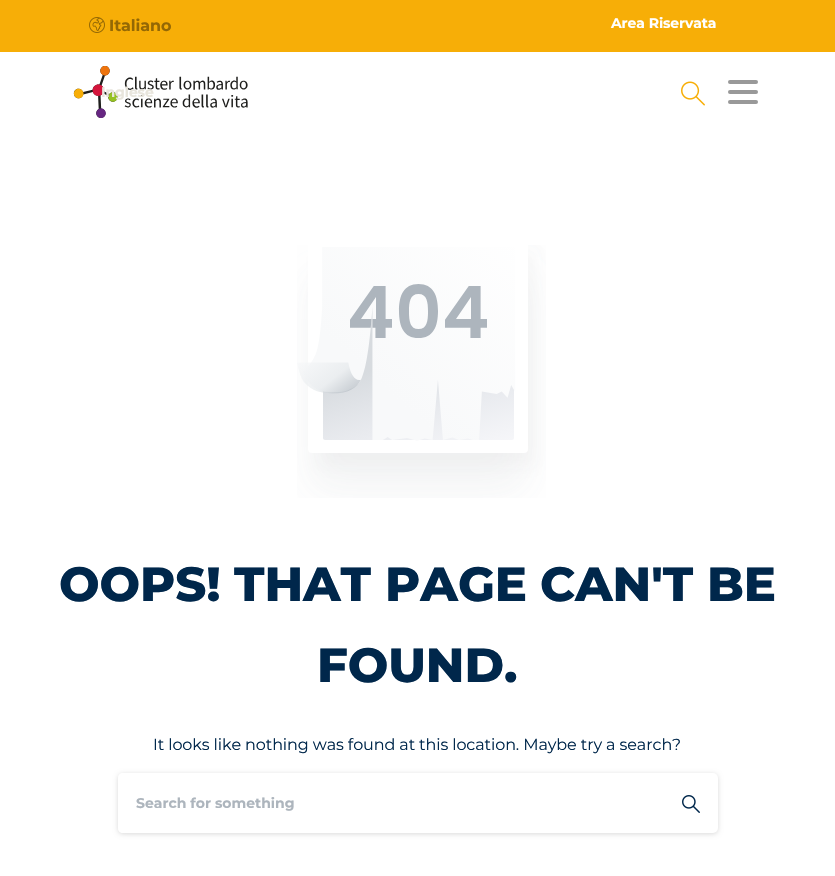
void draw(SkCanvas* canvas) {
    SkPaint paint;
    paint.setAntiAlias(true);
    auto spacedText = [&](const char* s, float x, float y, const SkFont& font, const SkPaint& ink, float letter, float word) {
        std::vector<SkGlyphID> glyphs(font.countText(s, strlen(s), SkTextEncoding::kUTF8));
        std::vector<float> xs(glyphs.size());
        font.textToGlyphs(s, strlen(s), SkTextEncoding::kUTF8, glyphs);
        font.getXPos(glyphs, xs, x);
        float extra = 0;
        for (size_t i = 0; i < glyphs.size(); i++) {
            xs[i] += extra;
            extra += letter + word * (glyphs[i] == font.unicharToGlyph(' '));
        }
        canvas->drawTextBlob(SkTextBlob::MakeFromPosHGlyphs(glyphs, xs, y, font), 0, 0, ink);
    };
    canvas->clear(0xFFFFFFFF);
    paint.setColor(0xFFF7AE07);
    canvas->drawRect(SkRect::MakeXYWH(0, 0, 835, 52), paint);
    canvas->drawImageRect(SkImages::DeferredFromEncodedData(SkData::MakeFromFileName("img1.png")), SkRect::MakeXYWH(89, 17, 16, 16), SkSamplingOptions());
    SkFont font1(fontMgr->matchFamilyStyle("Montserrat", SkFontStyle::Bold()), 16);
    font1.setSubpixel(true);
    paint.setColor(0xFF946804);
    spacedText("Italiano", 109, 31, font1, paint, -0.1f, 0);
    canvas->drawImageRect(SkImages::DeferredFromEncodedData(SkData::MakeFromFileName("img2.png")), SkRect::MakeXYWH(73, 66, 175, 52), SkSamplingOptions());
    SkFont font2(fontMgr->matchFamilyStyle("Montserrat", SkFontStyle::Bold()), 14);
    font2.setSubpixel(true);
    paint.setColor(0xFFE8E5DC);
    spacedText("Inglese", 101, 97, font2, paint, -0.1f, 0);
    paint.setColor(0xFFFFFFFF);
    spacedText("Area Riservata", 611, 28, font2, paint, -0.1f, 0);
    canvas->drawImageRect(SkImages::DeferredFromEncodedData(SkData::MakeFromFileName("img3.png")), SkRect::MakeXYWH(681, 81, 24, 25), SkSamplingOptions());
    paint.setColor(0xFF999999);
    canvas->drawRoundRect(SkRect::MakeXYWH(728, 90, 30, 4), 2, 2, paint);
    canvas->drawRoundRect(SkRect::MakeXYWH(728, 80, 30, 4), 2, 2, paint);
    canvas->drawRoundRect(SkRect::MakeXYWH(728, 100, 30, 4), 2, 2, paint);
    canvas->drawImageRect(SkImages::DeferredFromEncodedData(SkData::MakeFromFileName("img4.png")), SkRect::MakeXYWH(297, 245, 249, 253), SkSamplingOptions());
    SkFont font3(fontMgr->matchFamilyStyle("Montserrat", SkFontStyle(800, SkFontStyle::kNormal_Width, SkFontStyle::kUpright_Slant)), 48);
    font3.setSubpixel(true);
    paint.setColor(0xFF00274B);
    spacedText("OOPS!", 59, 601, font3, paint, -0.1f, 0);
    spacedText("THAT", 234, 601, font3, paint, -0.1f, 0);
    spacedText("PAGE", 385, 601, font3, paint, -0.1f, 0);
    spacedText("CAN'T", 540, 601, font3, paint, -0.1f, 0);
    spacedText("BE", 707, 601, font3, paint, -0.1f, 0);
    spacedText("FOUND.", 317, 682, font3, paint, -0.1f, 0);
    SkFont font4(fontMgr->matchFamilyStyle("Montserrat", SkFontStyle::Normal()), 16);
    font4.setSubpixel(true);
    spacedText("It looks like nothing was found at this location. Maybe try a search?", 153, 750, font4, paint, -0.1f, 0);
    paint.setColor(0x26000000);
    paint.setMaskFilter(SkMaskFilter::MakeBlur(kNormal_SkBlurStyle, 2.5f));
    canvas->drawRoundRect(SkRect::MakeXYWH(118, 774, 600, 60), 5, 5, paint);
    paint.setMaskFilter(nullptr);
    paint.setColor(0xFFFFFFFF);
    canvas->drawRoundRect(SkRect::MakeXYWH(118, 773, 600, 60), 5, 5, paint);
    canvas->drawPath(SkPathBuilder().moveTo(123, 773).lineTo(664, 773).lineTo(664, 833).lineTo(123, 833).cubicTo(120, 833, 118, 831, 118, 828).lineTo(118, 778).cubicTo(118, 775, 120, 773, 123, 773).close().detach(), paint);
    paint.setColor(0xFFADB5BD);
    canvas->drawString("Search for something", 136, 808, font2, paint);
    canvas->drawImageRect(SkImages::DeferredFromEncodedData(SkData::MakeFromFileName("img5.png")), SkRect::MakeXYWH(682, 795, 18, 18), SkSamplingOptions());
}
